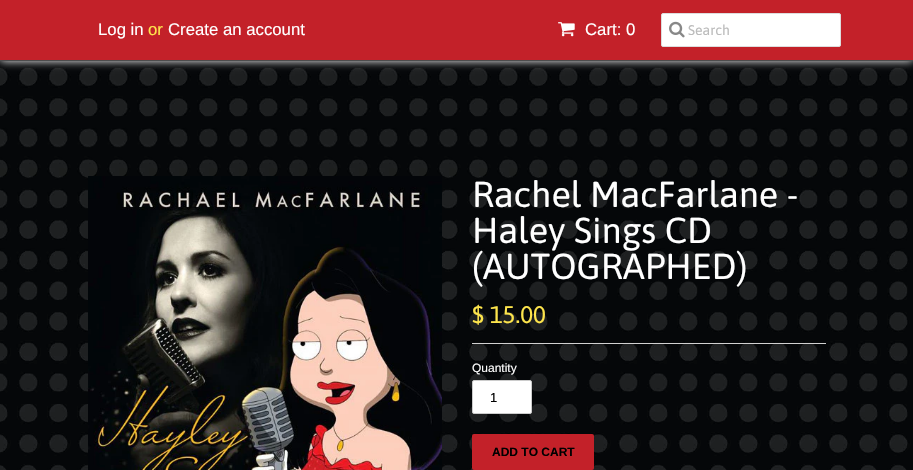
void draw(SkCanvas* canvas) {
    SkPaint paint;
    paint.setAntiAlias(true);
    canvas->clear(0xFFFFFFFF);
    canvas->drawImageRect(SkImages::DeferredFromEncodedData(SkData::MakeFromFileName("img1.png")), SkRect::MakeXYWH(0, 61, 913, 409), SkSamplingOptions());
    paint.setColor(0xFFFFFFFF);
    paint.setMaskFilter(SkMaskFilter::MakeBlur(kNormal_SkBlurStyle, 4.5f));
    canvas->drawRect(SkRect::MakeXYWH(0, 0, 913, 61), paint);
    paint.setMaskFilter(nullptr);
    paint.setColor(0xFFC32129);
    canvas->drawRect(SkRect::MakeXYWH(0, 0, 913, 60), paint);
    paint.setColor(0xFF4D4D4D);
    canvas->drawRect(SkRect::MakeXYWH(0, 60, 913, 1), paint);
    SkFont font1(fontMgr->matchFamilyStyle("Liberation Sans", SkFontStyle::Normal()), 16.75f);
    font1.setSubpixel(true);
    paint.setColor(0xFFFFFFFF);
    canvas->drawString("Log in", 98, 35, font1, paint);
    paint.setColor(0xFFFEE54C);
    canvas->drawString("or", 148, 35, font1, paint);
    paint.setColor(0xFFFFFFFF);
    canvas->drawString("Create an account", 168, 35, font1, paint);
    canvas->drawImageRect(SkImages::DeferredFromEncodedData(SkData::MakeFromFileName("img2.png")), SkRect::MakeXYWH(558, 22, 17, 15), SkSamplingOptions());
    canvas->drawString("Cart: 0", 585, 35, font1, paint);
    canvas->drawRoundRect(SkRect::MakeXYWH(661.5f, 13.5f, 179, 33), 1.5f, 1.5f, paint);
    paint.setStyle(SkPaint::kStroke_Style);
    paint.setStrokeWidth(1);
    paint.setColor(0xFFDDDDDD);
    canvas->drawRoundRect(SkRect::MakeXYWH(661.5f, 13.5f, 179, 33), 1.5f, 1.5f, paint);
    canvas->drawImageRect(SkImages::DeferredFromEncodedData(SkData::MakeFromFileName("img3.png")), SkRect::MakeXYWH(669, 21, 16, 17), SkSamplingOptions());
    SkFont font2(fontMgr->matchFamilyStyle("Asap", SkFontStyle::Normal()), 14);
    font2.setSubpixel(true);
    paint.setStyle(SkPaint::kFill_Style);
    paint.setColor(0xFFBBBBBB);
    canvas->drawString("Search", 688, 35, font2, paint);
    canvas->drawImageRect(SkImages::DeferredFromEncodedData(SkData::MakeFromFileName("img4.png")), SkRect::MakeXYWH(88, 176, 354, 294), SkSamplingOptions());
    SkFont font3(fontMgr->matchFamilyStyle("Asap", SkFontStyle::Normal()), 36);
    font3.setSubpixel(true);
    paint.setColor(0xFFFFFFFF);
    canvas->drawString("Rachel MacFarlane -", 472, 207, font3, paint);
    canvas->drawString("Haley Sings CD", 472, 243, font3, paint);
    canvas->drawString("(AUTOGRAPHED)", 472, 279, font3, paint);
    SkFont font4(fontMgr->matchFamilyStyle("Asap", SkFontStyle::Normal()), 24);
    font4.setSubpixel(true);
    paint.setColor(0xFFFEE54C);
    canvas->drawString("$ 15.00", 472, 323, font4, paint);
    paint.setColor(0xFFD1D1D1);
    canvas->drawRect(SkRect::MakeXYWH(472, 343, 354, 1), paint);
    SkFont font5(fontMgr->matchFamilyStyle("Liberation Sans", SkFontStyle::Normal()), 12);
    font5.setSubpixel(true);
    paint.setColor(0xFFFFFFFF);
    canvas->drawString("Quantity", 472, 372, font5, paint);
    canvas->drawRoundRect(SkRect::MakeXYWH(472.5f, 380.5f, 59, 33), 1.5f, 1.5f, paint);
    paint.setStyle(SkPaint::kStroke_Style);
    paint.setColor(0xFFCCCCCC);
    canvas->drawRoundRect(SkRect::MakeXYWH(472.5f, 380.5f, 59, 33), 1.5f, 1.5f, paint);
    SkFont font6(fontMgr->matchFamilyStyle("Liberation Sans", SkFontStyle::Normal()), 13);
    font6.setSubpixel(true);
    paint.setStyle(SkPaint::kFill_Style);
    paint.setColor(0xFF000000);
    canvas->drawString("1", 490, 402, font6, paint);
    paint.setColor(0xFFC32129);
    canvas->drawRoundRect(SkRect::MakeXYWH(472, 434, 122, 36), 2, 2, paint);
    SkFont font7(fontMgr->matchFamilyStyle("Liberation Sans", SkFontStyle::Bold()), 12);
    font7.setSubpixel(true);
    paint.setColor(0xFF000000);
    canvas->drawString("ADD TO CART", 492, 456, font7, paint);
}
